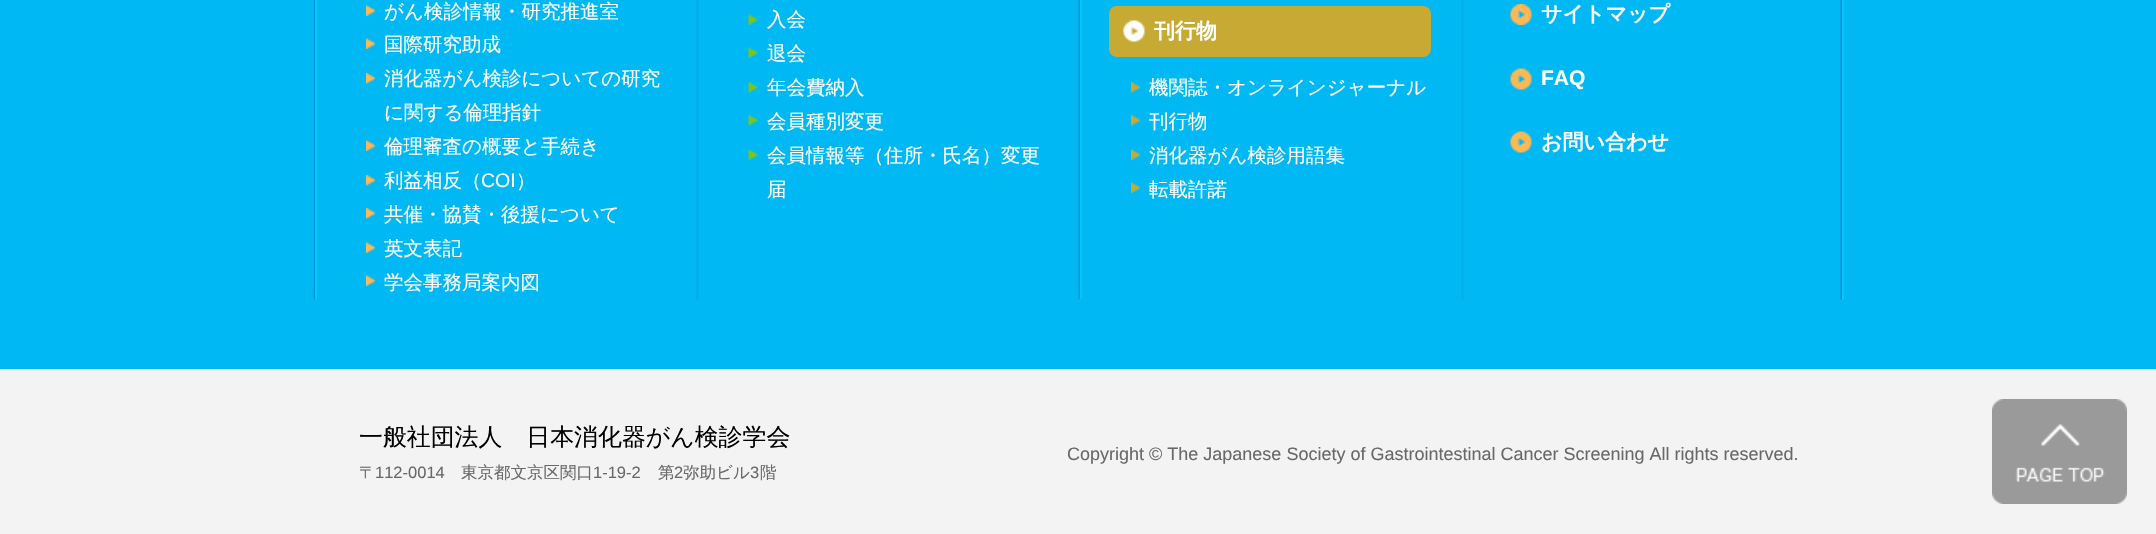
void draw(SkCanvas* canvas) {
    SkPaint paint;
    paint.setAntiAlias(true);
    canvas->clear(0xFF00B8F4);
    canvas->drawImageRect(SkImages::DeferredFromEncodedData(SkData::MakeFromFileName("img1.png")), SkRect::MakeXYWH(1840, 0, 4, 300), SkSamplingOptions());
    canvas->drawImageRect(SkImages::DeferredFromEncodedData(SkData::MakeFromFileName("img2.png")), SkRect::MakeXYWH(313, 0, 4, 300), SkSamplingOptions());
    canvas->drawImageRect(SkImages::DeferredFromEncodedData(SkData::MakeFromFileName("img3.png")), SkRect::MakeXYWH(366, 5, 9, 11), SkSamplingOptions());
    SkFont font1(fontMgr->matchFamilyStyle("WenQuanYi Zen Hei", SkFontStyle(500, SkFontStyle::kNormal_Width, SkFontStyle::kUpright_Slant)), 19.5f);
    font1.setSubpixel(true);
    paint.setColor(0xFFFFFFFF);
    canvas->drawString("がん検診情報・研究推進室", 384, 18, font1, paint);
    canvas->drawImageRect(SkImages::DeferredFromEncodedData(SkData::MakeFromFileName("img3.png")), SkRect::MakeXYWH(366, 38, 9, 11), SkSamplingOptions());
    canvas->drawString("国際研究助成", 384, 51, font1, paint);
    canvas->drawImageRect(SkImages::DeferredFromEncodedData(SkData::MakeFromFileName("img4.png")), SkRect::MakeXYWH(366, 73, 9, 11), SkSamplingOptions());
    canvas->drawString("消化器がん検診についての研究", 384, 85, font1, paint);
    canvas->drawString("に関する倫理指針", 384, 119, font1, paint);
    canvas->drawImageRect(SkImages::DeferredFromEncodedData(SkData::MakeFromFileName("img3.png")), SkRect::MakeXYWH(366, 140, 9, 11), SkSamplingOptions());
    canvas->drawString("倫理審査の概要と手続き", 384, 153, font1, paint);
    canvas->drawImageRect(SkImages::DeferredFromEncodedData(SkData::MakeFromFileName("img4.png")), SkRect::MakeXYWH(366, 175, 9, 11), SkSamplingOptions());
    canvas->drawString("利益相反（", 384, 187, font1, paint);
    SkFont font2(fontMgr->matchFamilyStyle("Liberation Sans", SkFontStyle::Normal()), 19.5f);
    font2.setSubpixel(true);
    canvas->drawString("COI", 481, 187, font2, paint);
    canvas->drawString("）", 516, 187, font1, paint);
    canvas->drawImageRect(SkImages::DeferredFromEncodedData(SkData::MakeFromFileName("img4.png")), SkRect::MakeXYWH(366, 208, 9, 11), SkSamplingOptions());
    canvas->drawString("共催・協賛・後援について", 384, 221, font1, paint);
    canvas->drawImageRect(SkImages::DeferredFromEncodedData(SkData::MakeFromFileName("img3.png")), SkRect::MakeXYWH(366, 242, 9, 11), SkSamplingOptions());
    canvas->drawString("英文表記", 384, 255, font1, paint);
    canvas->drawImageRect(SkImages::DeferredFromEncodedData(SkData::MakeFromFileName("img3.png")), SkRect::MakeXYWH(366, 275, 9, 11), SkSamplingOptions());
    canvas->drawString("学会事務局案内図", 384, 289, font1, paint);
    paint.setColor(0xFF00AFF1);
    canvas->drawRect(SkRect::MakeXYWH(696, 0, 3, 300), paint);
    canvas->drawImageRect(SkImages::DeferredFromEncodedData(SkData::MakeFromFileName("img5.png")), SkRect::MakeXYWH(748, 14, 10, 11), SkSamplingOptions());
    paint.setColor(0xFFFFFFFF);
    canvas->drawString("入会", 767, 26, font1, paint);
    canvas->drawImageRect(SkImages::DeferredFromEncodedData(SkData::MakeFromFileName("img5.png")), SkRect::MakeXYWH(748, 47, 10, 11), SkSamplingOptions());
    canvas->drawString("退会", 767, 60, font1, paint);
    canvas->drawImageRect(SkImages::DeferredFromEncodedData(SkData::MakeFromFileName("img6.png")), SkRect::MakeXYWH(748, 82, 10, 11), SkSamplingOptions());
    canvas->drawString("年会費納入", 767, 94, font1, paint);
    canvas->drawImageRect(SkImages::DeferredFromEncodedData(SkData::MakeFromFileName("img6.png")), SkRect::MakeXYWH(748, 115, 10, 11), SkSamplingOptions());
    canvas->drawString("会員種別変更", 767, 128, font1, paint);
    canvas->drawImageRect(SkImages::DeferredFromEncodedData(SkData::MakeFromFileName("img5.png")), SkRect::MakeXYWH(748, 149, 10, 11), SkSamplingOptions());
    canvas->drawString("会員情報等（住所・氏名）変更", 767, 162, font1, paint);
    canvas->drawString("届", 767, 196, font1, paint);
    canvas->drawImageRect(SkImages::DeferredFromEncodedData(SkData::MakeFromFileName("img7.png")), SkRect::MakeXYWH(1078, 0, 4, 300), SkSamplingOptions());
    paint.setColor(0xFFC7AA34);
    canvas->drawRoundRect(SkRect::MakeXYWH(1109, 6, 322, 51), 8, 8, paint);
    canvas->drawImageRect(SkImages::DeferredFromEncodedData(SkData::MakeFromFileName("img8.png")), SkRect::MakeXYWH(1123, 20, 22, 22), SkSamplingOptions());
    SkFont font3(fontMgr->matchFamilyStyle("WenQuanYi Zen Hei", SkFontStyle::Bold()), 21);
    font3.setSubpixel(true);
    paint.setColor(0xFFFFFFFF);
    canvas->drawString("刊行物", 1154, 38, font3, paint);
    canvas->drawImageRect(SkImages::DeferredFromEncodedData(SkData::MakeFromFileName("img9.png")), SkRect::MakeXYWH(1131, 82, 9, 11), SkSamplingOptions());
    canvas->drawString("機関誌・オンラインジャーナル", 1149, 94, font1, paint);
    canvas->drawImageRect(SkImages::DeferredFromEncodedData(SkData::MakeFromFileName("img9.png")), SkRect::MakeXYWH(1131, 115, 9, 11), SkSamplingOptions());
    canvas->drawString("刊行物", 1149, 128, font1, paint);
    canvas->drawImageRect(SkImages::DeferredFromEncodedData(SkData::MakeFromFileName("img10.png")), SkRect::MakeXYWH(1131, 149, 9, 11), SkSamplingOptions());
    canvas->drawString("消化器がん検診用語集", 1149, 162, font1, paint);
    canvas->drawImageRect(SkImages::DeferredFromEncodedData(SkData::MakeFromFileName("img10.png")), SkRect::MakeXYWH(1131, 182, 9, 11), SkSamplingOptions());
    canvas->drawString("転載許諾", 1149, 196, font1, paint);
    paint.setColor(0xFF00AFF1);
    canvas->drawRect(SkRect::MakeXYWH(1461, 0, 3, 300), paint);
    canvas->drawImageRect(SkImages::DeferredFromEncodedData(SkData::MakeFromFileName("img11.png")), SkRect::MakeXYWH(1510, 4, 22, 21), SkSamplingOptions());
    paint.setColor(0xFFFFFFFF);
    canvas->drawString("サイトマップ", 1541, 21, font3, paint);
    canvas->drawImageRect(SkImages::DeferredFromEncodedData(SkData::MakeFromFileName("img12.png")), SkRect::MakeXYWH(1510, 68, 22, 22), SkSamplingOptions());
    SkFont font4(fontMgr->matchFamilyStyle("Liberation Sans", SkFontStyle::Bold()), 21);
    font4.setSubpixel(true);
    canvas->drawString("FAQ", 1541, 85, font4, paint);
    canvas->drawImageRect(SkImages::DeferredFromEncodedData(SkData::MakeFromFileName("img12.png")), SkRect::MakeXYWH(1510, 131, 22, 22), SkSamplingOptions());
    canvas->drawString("お問い合わせ", 1541, 149, font3, paint);
    paint.setColor(0xFFF3F3F3);
    canvas->drawRect(SkRect::MakeXYWH(0, 369, 2156, 165), paint);
    SkFont font5(fontMgr->matchFamilyStyle("WenQuanYi Zen Hei", SkFontStyle(500, SkFontStyle::kNormal_Width, SkFontStyle::kUpright_Slant)), 23.9f);
    font5.setSubpixel(true);
    paint.setColor(0xFF000000);
    canvas->drawString("一般社団法人　日本消化器がん検診学会", 359, 445, font5, paint);
    SkFont font6(fontMgr->matchFamilyStyle("WenQuanYi Zen Hei", SkFontStyle(500, SkFontStyle::kNormal_Width, SkFontStyle::kUpright_Slant)), 16.5f);
    font6.setSubpixel(true);
    paint.setColor(0xFF686868);
    canvas->drawString("〒", 359, 478, font6, paint);
    SkFont font7(fontMgr->matchFamilyStyle("Liberation Sans", SkFontStyle::Normal()), 16.5f);
    font7.setSubpixel(true);
    canvas->drawString("112-0014", 375, 478, font7, paint);
    canvas->drawString("東京都文京区関口", 461, 478, font6, paint);
    canvas->drawString("1-19-2", 593, 478, font7, paint);
    canvas->drawString("第", 658, 478, font6, paint);
    canvas->drawString("2", 674, 478, font7, paint);
    canvas->drawString("弥助ビル", 683, 478, font6, paint);
    canvas->drawString("3", 750, 478, font7, paint);
    canvas->drawString("階", 760, 478, font6, paint);
    SkFont font8(fontMgr->matchFamilyStyle("Liberation Sans", SkFontStyle::Normal()), 18);
    font8.setSubpixel(true);
    canvas->drawString("Copyright © The Japanese Society of Gastrointestinal Cancer Screening All rights reserved.", 1067, 460, font8, paint);
    canvas->drawImageRect(SkImages::DeferredFromEncodedData(SkData::MakeFromFileName("img13.png")), SkRect::MakeXYWH(1992, 399, 135, 105), SkSamplingOptions());
}
